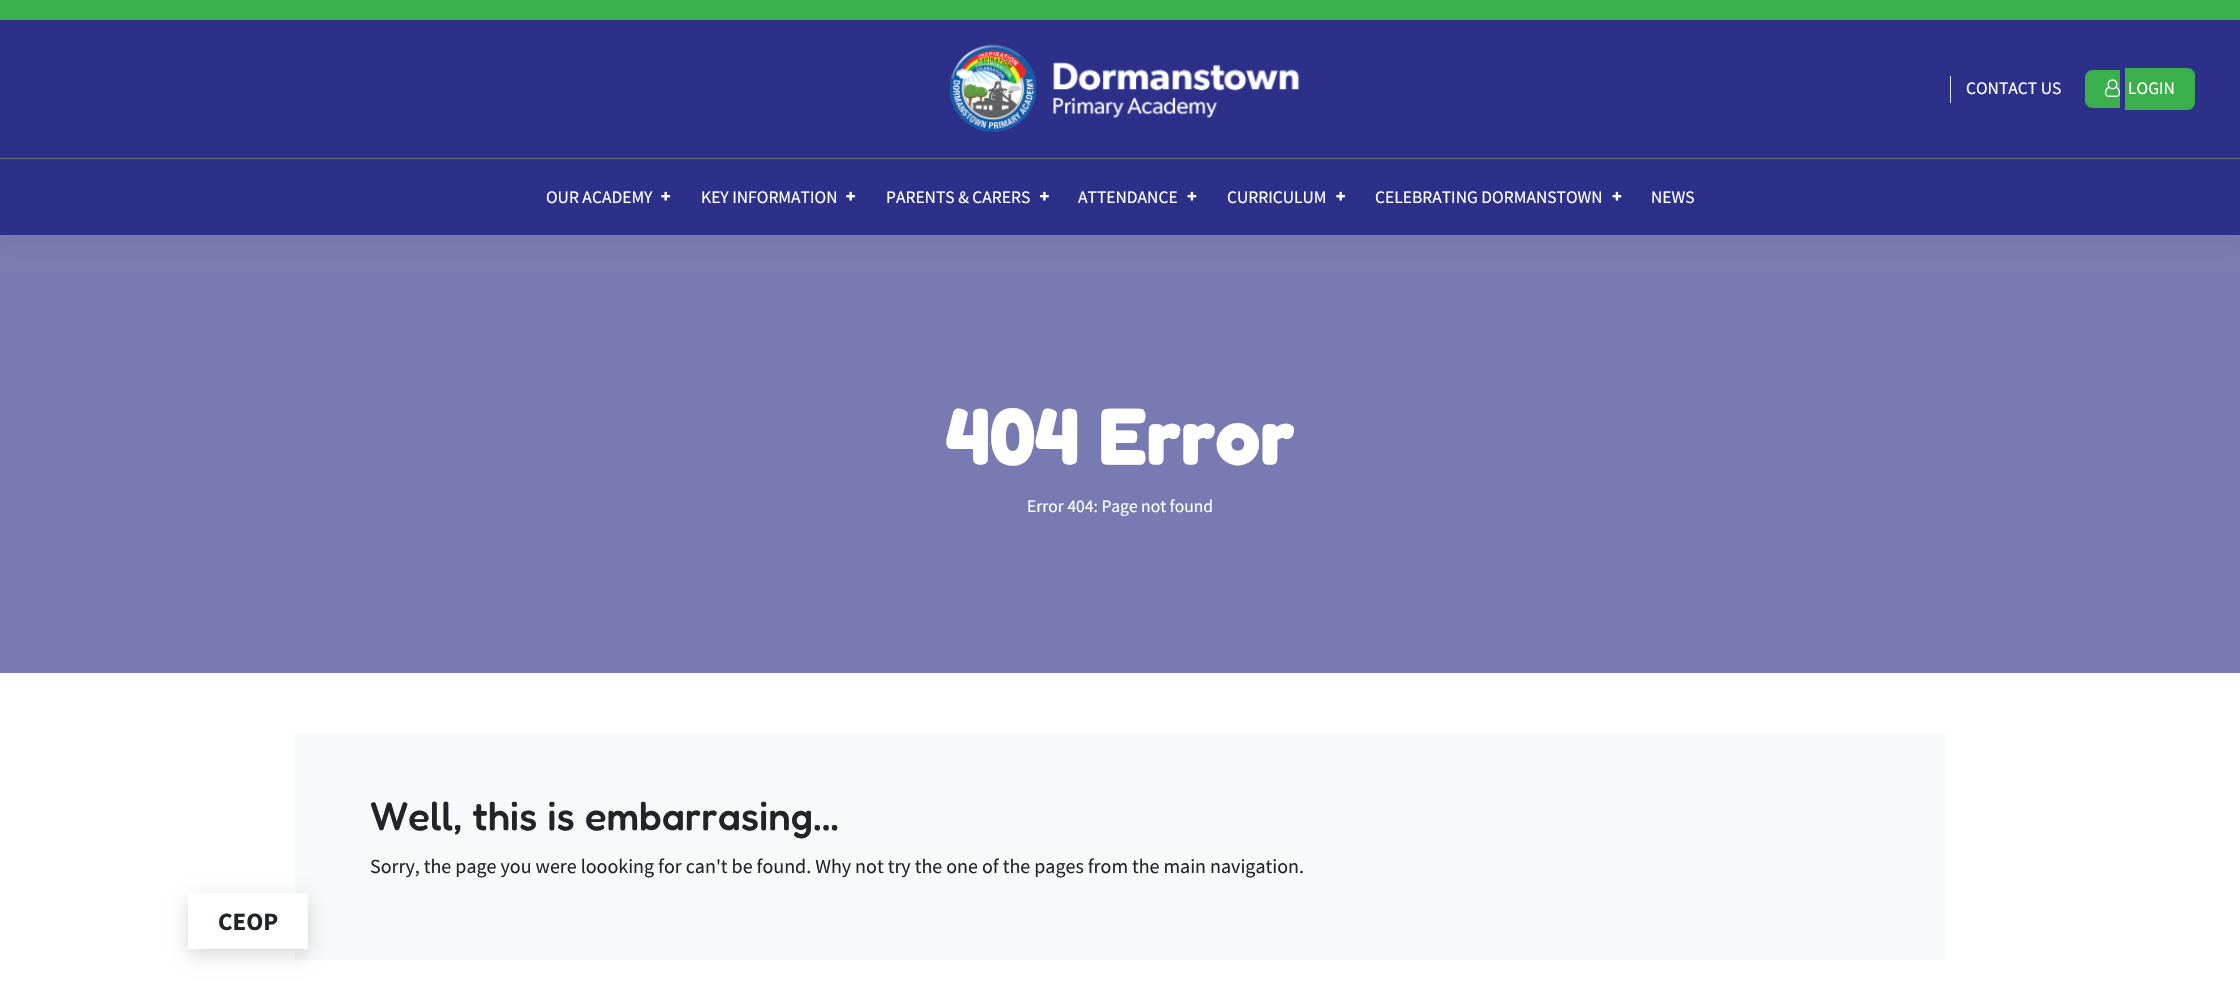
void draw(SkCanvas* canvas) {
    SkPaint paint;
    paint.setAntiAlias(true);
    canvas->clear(0xFFFFFFFF);
    paint.setColor(0xFF777BB1);
    canvas->drawRect(SkRect::MakeXYWH(0, 235, 2240, 438), paint);
    paint.setColor(0x1A444444);
    paint.setMaskFilter(SkMaskFilter::MakeBlur(kNormal_SkBlurStyle, 12.5f));
    canvas->drawRect(SkRect::MakeXYWH(0, 1, 2240, 235), paint);
    paint.setMaskFilter(nullptr);
    paint.setColor(0xFF2C3089);
    canvas->drawRect(SkRect::MakeXYWH(0, 20, 2240, 215), paint);
    paint.setColor(0xFF3BAF4C);
    canvas->drawRect(SkRect::MakeXYWH(0, 0, 2240, 20), paint);
    canvas->drawImageRect(SkImages::DeferredFromEncodedData(SkData::MakeFromFileName("img1.png")), SkRect::MakeXYWH(950, 44, 350, 88), SkSamplingOptions());
    paint.setColor(0xFFDEE2E6);
    canvas->drawRect(SkRect::MakeXYWH(1950, 76, 1, 27), paint);
    SkFont font1(fontMgr->matchFamilyStyle("Source Sans Pro", SkFontStyle::Normal()), 17.5f);
    font1.setSubpixel(true);
    paint.setColor(0xFFFFFFFF);
    canvas->drawString("CONTACT US", 1966, 94, font1, paint);
    paint.setColor(0xFF3BAF4C);
    canvas->drawPath(SkPathBuilder().moveTo(2093, 70).lineTo(2120, 70).lineTo(2120, 108).lineTo(2093, 108).cubicTo(2088.5f, 108, 2085, 104.5f, 2085, 100).lineTo(2085, 78).cubicTo(2085, 73.5f, 2088.5f, 70, 2093, 70).close().detach(), paint);
    canvas->drawPath(SkPathBuilder().moveTo(2125, 68).lineTo(2187, 68).cubicTo(2191.5f, 68, 2195, 71.5f, 2195, 76).lineTo(2195, 102).cubicTo(2195, 106.5f, 2191.5f, 110, 2187, 110).lineTo(2125, 110).close().detach(), paint);
    canvas->drawImageRect(SkImages::DeferredFromEncodedData(SkData::MakeFromFileName("img2.png")), SkRect::MakeXYWH(2105, 79, 15, 18), SkSamplingOptions());
    paint.setColor(0xFFFFFFFF);
    canvas->drawString("LOGIN", 2128, 94, font1, paint);
    paint.setColor(0xFF6C757D);
    canvas->drawRect(SkRect::MakeXYWH(0, 158, 2240, 1), paint);
    paint.setColor(0xFFFFFFFF);
    canvas->drawString("OUR ACADEMY", 546, 203, font1, paint);
    canvas->drawImageRect(SkImages::DeferredFromEncodedData(SkData::MakeFromFileName("img3.png")), SkRect::MakeXYWH(661, 191, 10, 10), SkSamplingOptions());
    canvas->drawString("KEY INFORMATION", 701, 203, font1, paint);
    canvas->drawImageRect(SkImages::DeferredFromEncodedData(SkData::MakeFromFileName("img3.png")), SkRect::MakeXYWH(846, 191, 10, 10), SkSamplingOptions());
    canvas->drawString("PARENTS & CARERS", 886, 203, font1, paint);
    canvas->drawImageRect(SkImages::DeferredFromEncodedData(SkData::MakeFromFileName("img4.png")), SkRect::MakeXYWH(1040, 191, 9, 10), SkSamplingOptions());
    canvas->drawString("ATTENDANCE", 1078, 203, font1, paint);
    canvas->drawImageRect(SkImages::DeferredFromEncodedData(SkData::MakeFromFileName("img5.png")), SkRect::MakeXYWH(1187, 191, 10, 10), SkSamplingOptions());
    canvas->drawString("CURRICULUM", 1227, 203, font1, paint);
    canvas->drawImageRect(SkImages::DeferredFromEncodedData(SkData::MakeFromFileName("img3.png")), SkRect::MakeXYWH(1336, 191, 10, 10), SkSamplingOptions());
    canvas->drawString("CELEBRATING DORMANSTOWN", 1375, 203, font1, paint);
    canvas->drawImageRect(SkImages::DeferredFromEncodedData(SkData::MakeFromFileName("img5.png")), SkRect::MakeXYWH(1612, 191, 10, 10), SkSamplingOptions());
    canvas->drawString("NEWS", 1651, 203, font1, paint);
    SkFont font2(fontMgr->matchFamilyStyle("Fredoka", SkFontStyle::Bold()), 80);
    font2.setSubpixel(true);
    canvas->drawString("404 Error", 946, 464, font2, paint);
    canvas->drawString("Error 404: Page not found", 1027, 512, font1, paint);
    paint.setColor(0xFFF8F9FA);
    canvas->drawRect(SkRect::MakeXYWH(295, 733, 1650, 227), paint);
    SkFont font3(fontMgr->matchFamilyStyle("Fredoka", SkFontStyle(500, SkFontStyle::kNormal_Width, SkFontStyle::kUpright_Slant)), 40);
    font3.setSubpixel(true);
    paint.setColor(0xFF212529);
    canvas->drawString("Well, this is embarrasing...", 370, 830, font3, paint);
    SkFont font4(fontMgr->matchFamilyStyle("Source Sans Pro", SkFontStyle::Normal()), 20);
    font4.setSubpixel(true);
    canvas->drawString("Sorry, the page you were loooking for can't be found. Why not try the one of the pages from the main navigation.", 370, 873, font4, paint);
    paint.setColor(0x26000000);
    paint.setMaskFilter(SkMaskFilter::MakeBlur(kNormal_SkBlurStyle, 9.5f));
    canvas->drawRoundRect(SkRect::MakeXYWH(188, 899, 120, 56), 2, 2, paint);
    paint.setMaskFilter(nullptr);
    paint.setColor(0xFFFFFFFF);
    canvas->drawRoundRect(SkRect::MakeXYWH(188, 893, 120, 56), 2, 2, paint);
    SkFont font5(fontMgr->matchFamilyStyle("Source Sans Pro", SkFontStyle::Bold()), 25);
    font5.setSubpixel(true);
    paint.setColor(0xFF212529);
    canvas->drawString("CEOP", 218, 930, font5, paint);
}
